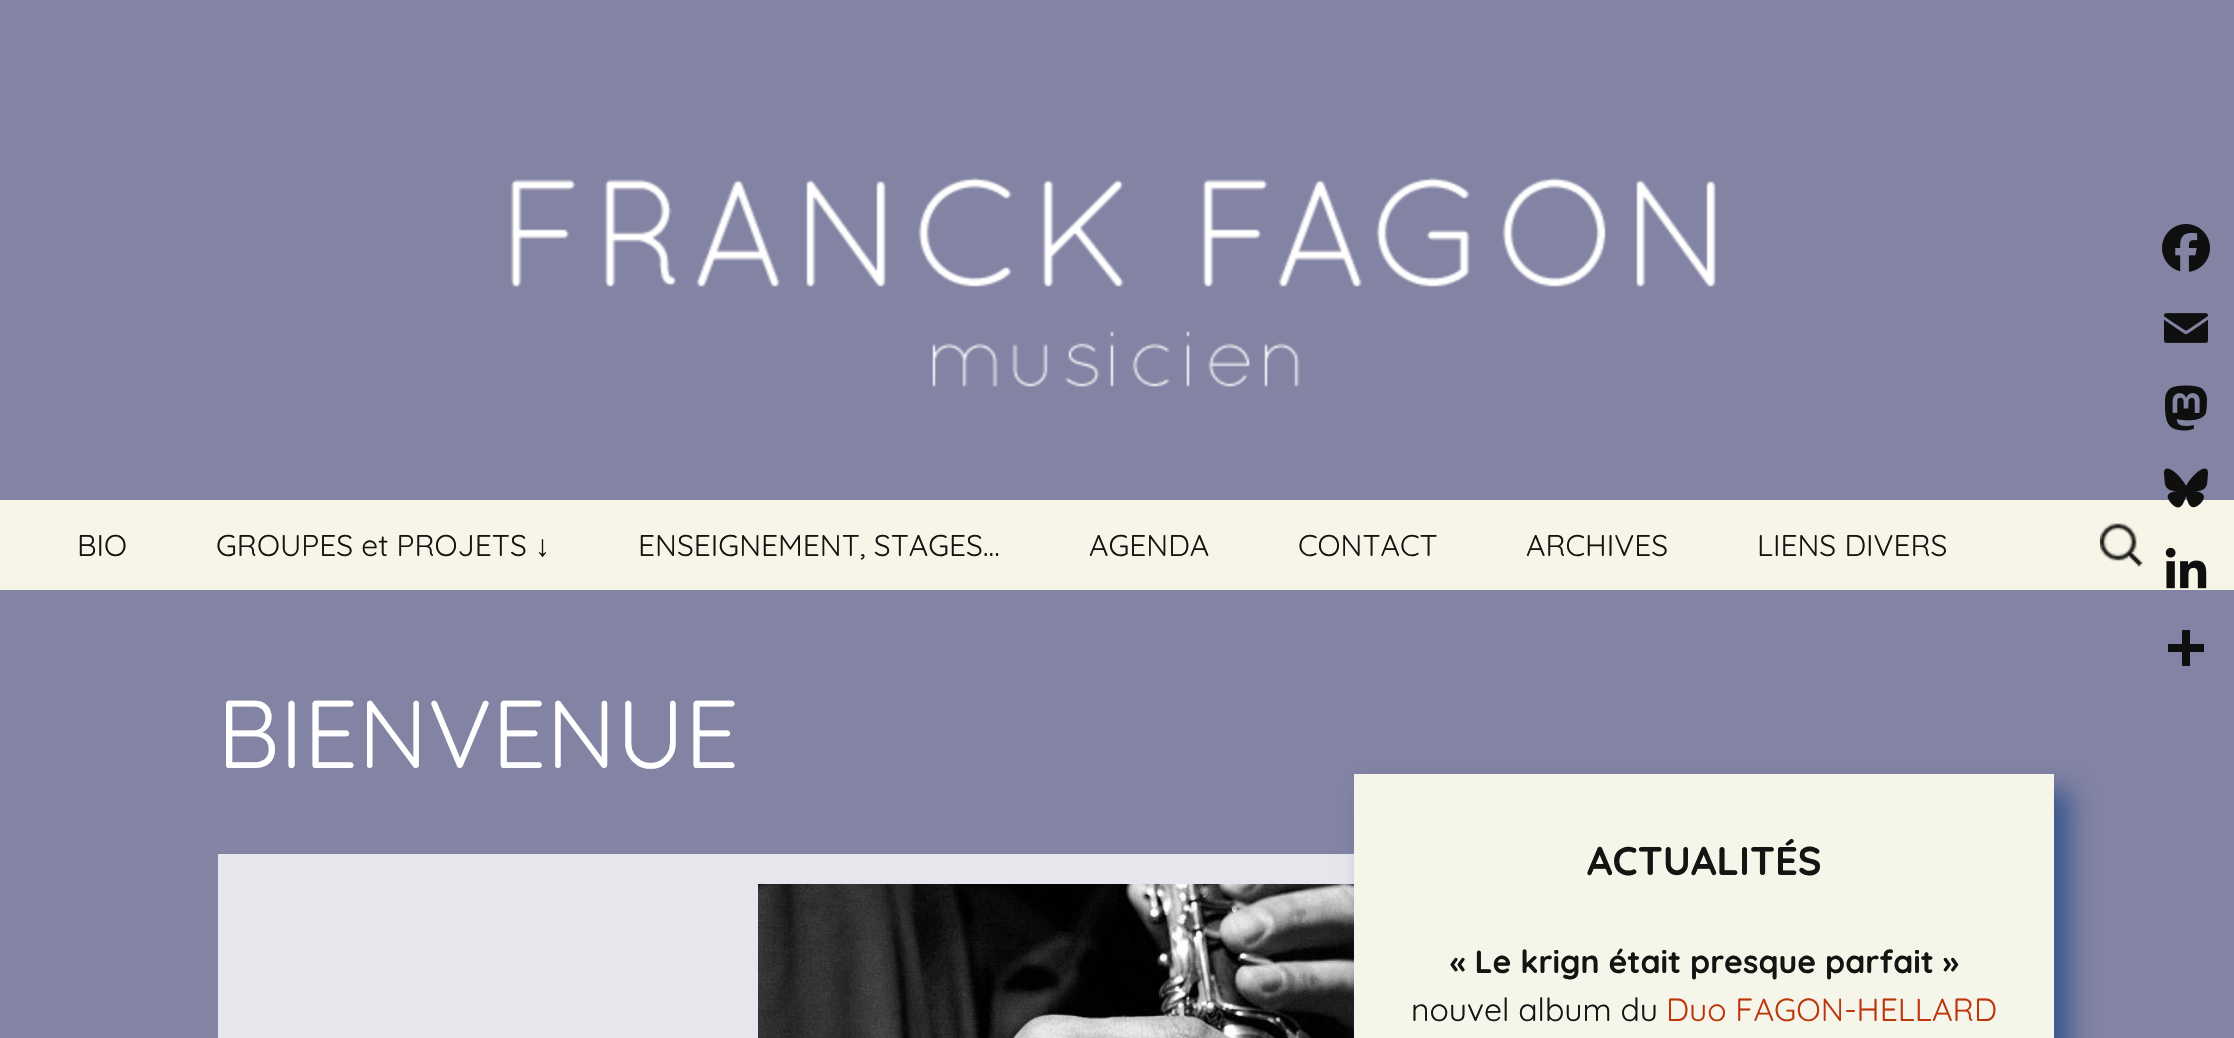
void draw(SkCanvas* canvas) {
    SkPaint paint;
    paint.setAntiAlias(true);
    canvas->clear(0xFF8383A3);
    canvas->drawImageRect(SkImages::DeferredFromEncodedData(SkData::MakeFromFileName("img1.png")), SkRect::MakeXYWH(2162, 224, 48, 48), SkSamplingOptions());
    canvas->drawImageRect(SkImages::DeferredFromEncodedData(SkData::MakeFromFileName("img2.png")), SkRect::MakeXYWH(2164, 313, 44, 30), SkSamplingOptions());
    canvas->drawImageRect(SkImages::DeferredFromEncodedData(SkData::MakeFromFileName("img3.png")), SkRect::MakeXYWH(2165, 385, 42, 46), SkSamplingOptions());
    paint.setColor(0xFFF7F5E7);
    canvas->drawRect(SkRect::MakeXYWH(0, 500, 2234, 90), paint);
    canvas->drawImageRect(SkImages::DeferredFromEncodedData(SkData::MakeFromFileName("img4.png")), SkRect::MakeXYWH(2164, 468, 44, 40), SkSamplingOptions());
    canvas->drawImageRect(SkImages::DeferredFromEncodedData(SkData::MakeFromFileName("img5.png")), SkRect::MakeXYWH(2165, 547, 42, 42), SkSamplingOptions());
    paint.setColor(0xFF0F0F0F);
    canvas->drawRect(SkRect::MakeXYWH(2182, 630, 8, 36), paint);
    canvas->drawRect(SkRect::MakeXYWH(2168, 644, 36, 8), paint);
    canvas->drawImageRect(SkImages::DeferredFromEncodedData(SkData::MakeFromFileName("img6.png")), SkRect::MakeXYWH(510, 177, 1206, 210), SkSamplingOptions());
    SkFont font1(fontMgr->matchFamilyStyle("Quicksand", SkFontStyle::Normal()), 30);
    font1.setSubpixel(true);
    paint.setColor(0xFF141412);
    canvas->drawString("BIO", 77, 556, font1, paint);
    canvas->drawString("GROUPES et PROJETS", 216, 556, font1, paint);
    SkFont font2(fontMgr->matchFamilyStyle("Liberation Sans", SkFontStyle::Normal()), 30);
    font2.setSubpixel(true);
    canvas->drawString("↓", 535, 556, font2, paint);
    canvas->drawString("ENSEIGNEMENT, STAGES…", 638, 556, font1, paint);
    canvas->drawString("AGENDA", 1089, 556, font1, paint);
    canvas->drawString("CONTACT", 1298, 556, font1, paint);
    canvas->drawString("ARCHIVES", 1526, 556, font1, paint);
    canvas->drawString("LIENS DIVERS", 1757, 556, font1, paint);
    canvas->drawImageRect(SkImages::DeferredFromEncodedData(SkData::MakeFromFileName("img7.png")), SkRect::MakeXYWH(2100, 523, 43, 44), SkSamplingOptions());
    SkFont font3(fontMgr->matchFamilyStyle("Quicksand", SkFontStyle::Normal()), 96);
    font3.setSubpixel(true);
    paint.setColor(0xFFFFFFFF);
    canvas->drawString("BIENVENUE", 217, 768, font3, paint);
    paint.setColor(0xFFE6E6ED);
    canvas->drawRect(SkRect::MakeXYWH(218, 854, 1136, 184), paint);
    canvas->drawImageRect(SkImages::DeferredFromEncodedData(SkData::MakeFromFileName("img8.png")), SkRect::MakeXYWH(758, 884, 596, 154), SkSamplingOptions());
    paint.setColor(0xFF37568D);
    paint.setMaskFilter(SkMaskFilter::MakeBlur(kNormal_SkBlurStyle, 12));
    canvas->drawRect(SkRect::MakeXYWH(1370, 790, 700, 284), paint);
    paint.setMaskFilter(nullptr);
    paint.setColor(0xFFF6F5EA);
    canvas->drawRect(SkRect::MakeXYWH(1354, 774, 700, 264), paint);
    SkFont font4(fontMgr->matchFamilyStyle("Quicksand", SkFontStyle::Bold()), 40);
    font4.setSubpixel(true);
    paint.setColor(0xFF141412);
    canvas->drawString("ACTUALITÉS", 1587, 875, font4, paint);
    SkFont font5(fontMgr->matchFamilyStyle("Quicksand", SkFontStyle::Bold()), 32);
    font5.setSubpixel(true);
    canvas->drawString("« Le krign était presque parfait »", 1450, 973, font5, paint);
    SkFont font6(fontMgr->matchFamilyStyle("Quicksand", SkFontStyle::Normal()), 32);
    font6.setSubpixel(true);
    canvas->drawString("nouvel album du", 1411, 1021, font6, paint);
    paint.setColor(0xFFBC360A);
    canvas->drawString("Duo FAGON-HELLARD", 1666, 1021, font6, paint);
}
